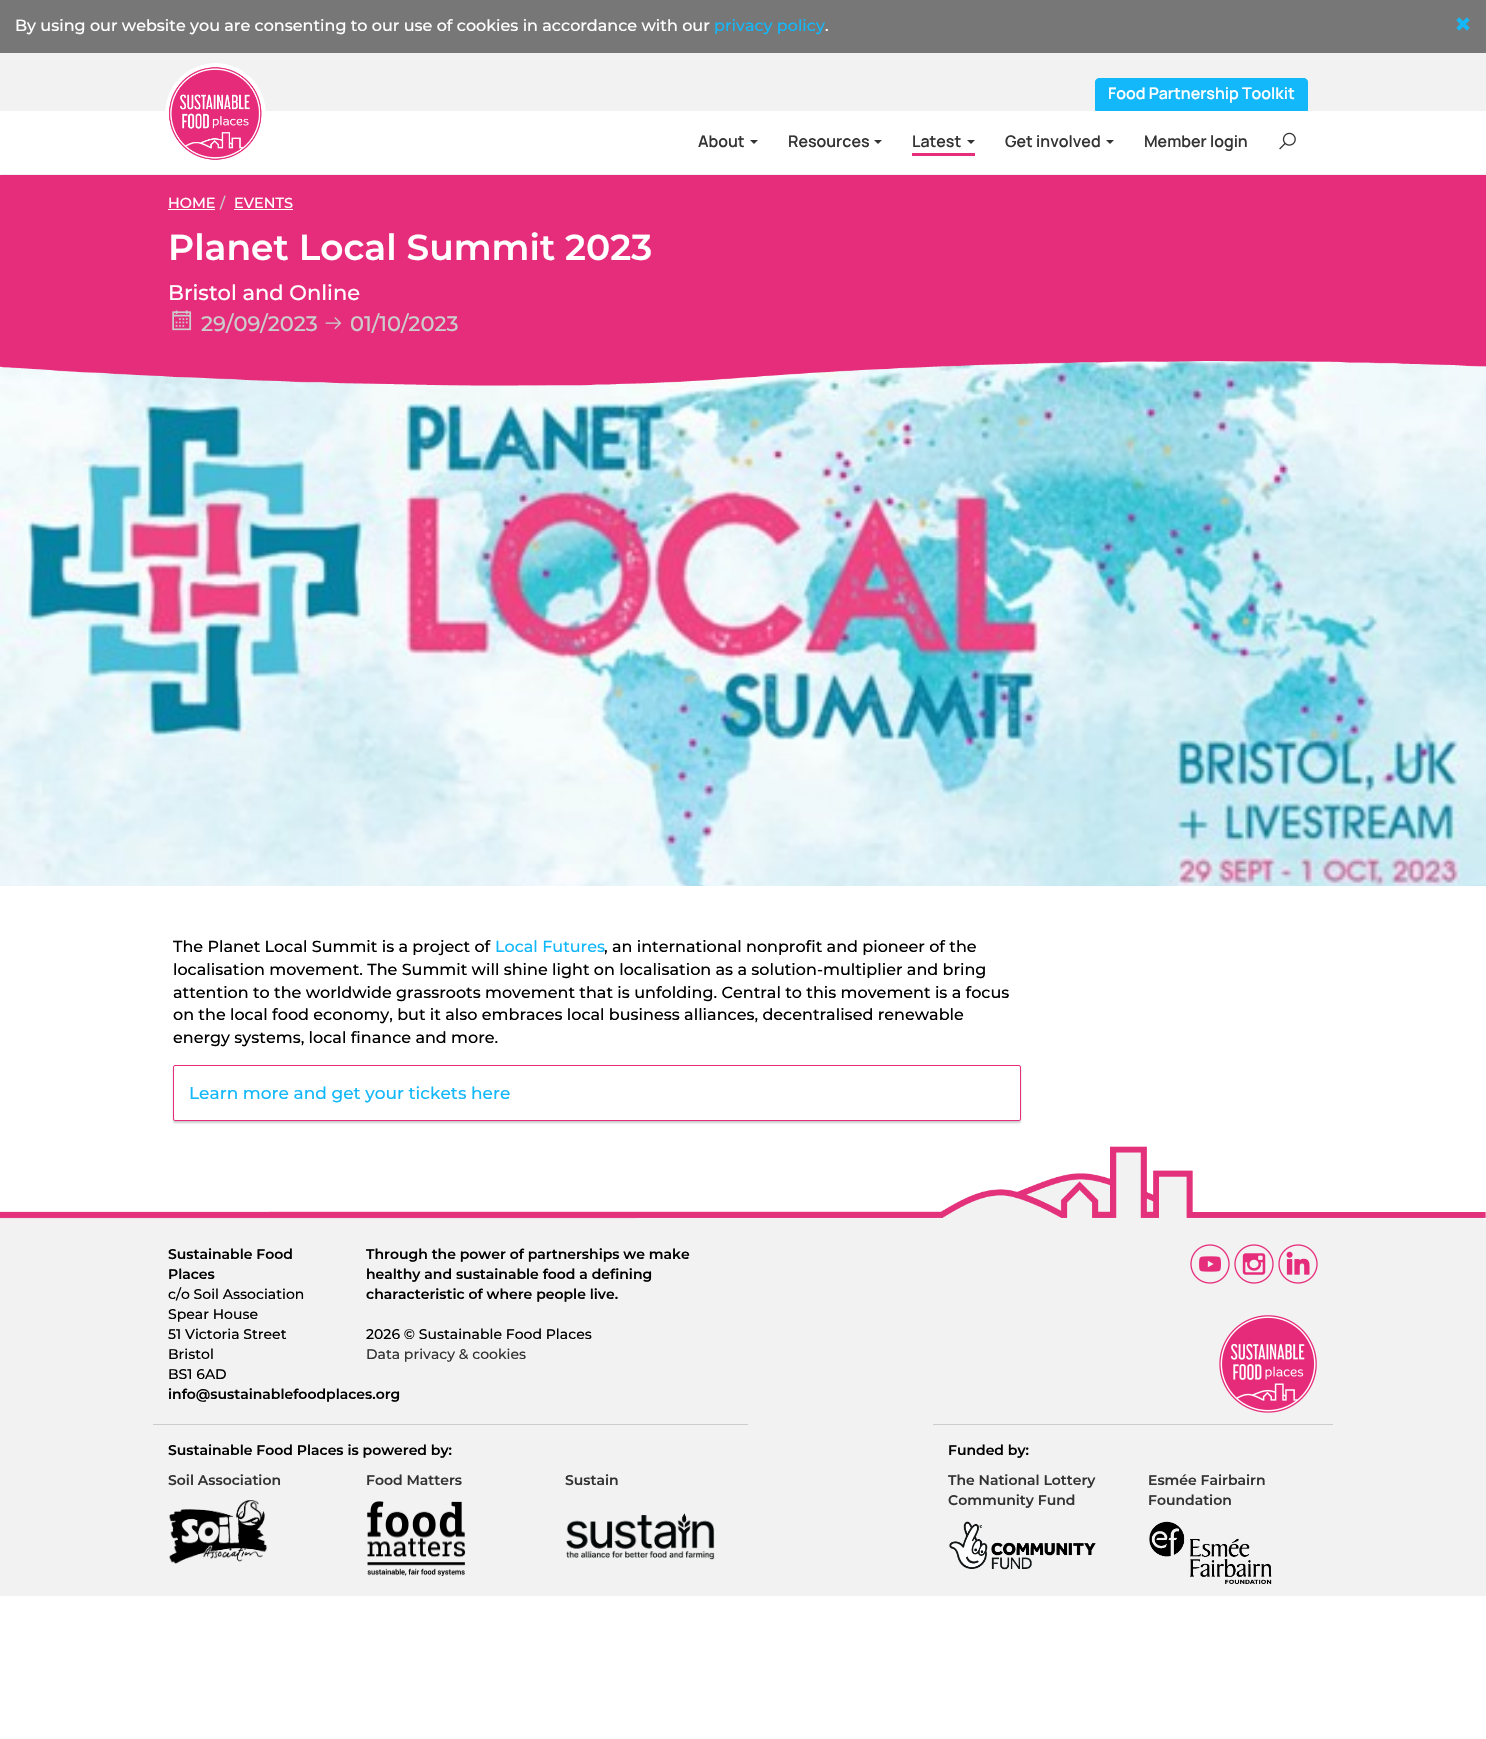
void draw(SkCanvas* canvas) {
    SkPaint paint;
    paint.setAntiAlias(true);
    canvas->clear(0xFFFFFFFF);
    paint.setColor(0xFF777777);
    canvas->drawRect(SkRect::MakeXYWH(0, 0, 1486, 53), paint);
    SkFont font1(fontMgr->matchFamilyStyle("Montserrat", SkFontStyle(500, SkFontStyle::kNormal_Width, SkFontStyle::kUpright_Slant)), 16);
    font1.setSubpixel(true);
    paint.setColor(0xFFFFFFFF);
    canvas->drawString("By using our website you are consenting to our use of cookies in accordance with our", 15, 31, font1, paint);
    paint.setColor(0xFF13B8FA);
    canvas->drawString("privacy policy", 714, 31, font1, paint);
    paint.setColor(0xFFFFFFFF);
    canvas->drawString(".", 825, 31, font1, paint);
    canvas->drawImageRect(SkImages::DeferredFromEncodedData(SkData::MakeFromFileName("img1.png")), SkRect::MakeXYWH(1456, 17, 14, 14), SkSamplingOptions());
    paint.setColor(0xFFF2F2F2);
    canvas->drawRect(SkRect::MakeXYWH(0, 53, 1486, 58), paint);
    paint.setColor(0xFF13B8FA);
    canvas->drawPath(SkPathBuilder().moveTo(1099, 78.5f).lineTo(1304, 78.5f).cubicTo(1306, 78.5f, 1307.5f, 80, 1307.5f, 82).lineTo(1307.5f, 110.5f).lineTo(1095.5f, 110.5f).lineTo(1095.5f, 82).cubicTo(1095.5f, 80, 1097, 78.5f, 1099, 78.5f).close().detach(), paint);
    paint.setStyle(SkPaint::kStroke_Style);
    paint.setStrokeWidth(1);
    canvas->drawPath(SkPathBuilder().moveTo(1099, 78.5f).lineTo(1304, 78.5f).cubicTo(1306, 78.5f, 1307.5f, 80, 1307.5f, 82).lineTo(1307.5f, 110.5f).lineTo(1095.5f, 110.5f).lineTo(1095.5f, 82).cubicTo(1095.5f, 80, 1097, 78.5f, 1099, 78.5f).close().detach(), paint);
    SkFont font2(fontMgr->matchFamilyStyle("Manrope", SkFontStyle(600, SkFontStyle::kNormal_Width, SkFontStyle::kUpright_Slant)), 16);
    font2.setSubpixel(true);
    paint.setStyle(SkPaint::kFill_Style);
    paint.setColor(0xFFFFFFFF);
    canvas->drawString("Food Partnership Toolkit", 1108, 99, font2, paint);
    paint.setColor(0xFFEFEFEF);
    canvas->drawRect(SkRect::MakeXYWH(0, 174, 1486, 1), paint);
    paint.setColor(0xFFFFFFFF);
    canvas->drawRect(SkRect::MakeXYWH(0, 174, 1, 1), paint);
    canvas->drawImageRect(SkImages::DeferredFromEncodedData(SkData::MakeFromFileName("img2.png")), SkRect::MakeXYWH(165, 63, 101, 97), SkSamplingOptions());
    paint.setColor(0xFF333333);
    canvas->drawString("About", 698, 147, font2, paint);
    canvas->drawPath(SkPathBuilder().moveTo(750, 140).lineTo(758, 140).lineTo(754, 144).close().detach(), paint);
    canvas->drawString("Resources", 788, 147, font2, paint);
    canvas->drawPath(SkPathBuilder().moveTo(874, 140).lineTo(882, 140).lineTo(878, 144).close().detach(), paint);
    paint.setColor(0xFFE62D7B);
    canvas->drawRect(SkRect::MakeXYWH(912, 153, 63, 3), paint);
    paint.setColor(0xFF333333);
    canvas->drawString("Latest", 912, 147, font2, paint);
    canvas->drawPath(SkPathBuilder().moveTo(967, 140).lineTo(975, 140).lineTo(971, 144).close().detach(), paint);
    canvas->drawString("Get involved", 1005, 147, font2, paint);
    canvas->drawPath(SkPathBuilder().moveTo(1106, 140).lineTo(1114, 140).lineTo(1110, 144).close().detach(), paint);
    canvas->drawString("Member login", 1144, 147, font2, paint);
    canvas->drawImageRect(SkImages::DeferredFromEncodedData(SkData::MakeFromFileName("img3.png")), SkRect::MakeXYWH(1279, 132, 17, 18), SkSamplingOptions());
    paint.setColor(0xFFE62D7B);
    canvas->drawRect(SkRect::MakeXYWH(0, 175, 1486, 184), paint);
    SkFont font3(fontMgr->matchFamilyStyle("Montserrat", SkFontStyle(500, SkFontStyle::kNormal_Width, SkFontStyle::kUpright_Slant)), 14.5f);
    font3.setSubpixel(true);
    paint.setColor(0xFFFFFFFF);
    canvas->drawString("HOME", 168, 208, font3, paint);
    canvas->drawRect(SkRect::MakeXYWH(168, 209, 47, 1), paint);
    paint.setColor(0xFFCCCCCC);
    canvas->drawString("/", 220, 208, font3, paint);
    paint.setColor(0xFFFFFFFF);
    canvas->drawString("EVENTS", 234, 208, font3, paint);
    canvas->drawRect(SkRect::MakeXYWH(234, 209, 59, 1), paint);
    SkFont font4(fontMgr->matchFamilyStyle("Montserrat", SkFontStyle(600, SkFontStyle::kNormal_Width, SkFontStyle::kUpright_Slant)), 36);
    font4.setSubpixel(true);
    canvas->drawString("Planet Local Summit 2023", 168, 260, font4, paint);
    SkFont font5(fontMgr->matchFamilyStyle("Montserrat", SkFontStyle(500, SkFontStyle::kNormal_Width, SkFontStyle::kUpright_Slant)), 21);
    font5.setSubpixel(true);
    canvas->drawString("Bristol and Online", 168, 300, font5, paint);
    canvas->drawImageRect(SkImages::DeferredFromEncodedData(SkData::MakeFromFileName("img4.png")), SkRect::MakeXYWH(172, 310, 20, 21), SkSamplingOptions());
    paint.setColor(0xFFCCCCCC);
    canvas->drawString("29/09/2023", 201, 331, font5, paint);
    canvas->drawImageRect(SkImages::DeferredFromEncodedData(SkData::MakeFromFileName("img5.png")), SkRect::MakeXYWH(325, 317, 17, 13), SkSamplingOptions());
    canvas->drawString("01/10/2023", 350, 331, font5, paint);
    canvas->drawImageRect(SkImages::DeferredFromEncodedData(SkData::MakeFromFileName("img6.png")), SkRect::MakeXYWH(0, 361, 1486, 525), SkSamplingOptions());
    canvas->drawImageRect(SkImages::DeferredFromEncodedData(SkData::MakeFromFileName("img7.png")), SkRect::MakeXYWH(0, 359, 1486, 27), SkSamplingOptions());
    paint.setColor(0xFF000000);
    canvas->drawString("The Planet Local Summit is a project of", 173, 952, font1, paint);
    paint.setColor(0xFF13B8FA);
    canvas->drawString("Local Futures", 495, 952, font1, paint);
    paint.setColor(0xFF000000);
    canvas->drawString(", an international nonprofit and pioneer of the", 604, 952, font1, paint);
    canvas->drawString("localisation movement. The Summit will shine light on localisation as a solution-multiplier and bring", 173, 975, font1, paint);
    canvas->drawString("attention to the worldwide grassroots movement that is unfolding. Central to this movement is a focus", 173, 998, font1, paint);
    canvas->drawString("on the local food economy, but it also embraces local business alliances, decentralised renewable", 173, 1020, font1, paint);
    canvas->drawString("energy systems, local finance and more.", 173, 1043, font1, paint);
    paint.setColor(0x33000000);
    paint.setMaskFilter(SkMaskFilter::MakeBlur(kNormal_SkBlurStyle, 1));
    canvas->drawRoundRect(SkRect::MakeXYWH(173, 1067, 848, 56), 2, 2, paint);
    paint.setMaskFilter(nullptr);
    paint.setColor(0xFFFFFFFF);
    canvas->drawRoundRect(SkRect::MakeXYWH(173.5f, 1065.5f, 847, 55), 1.5f, 1.5f, paint);
    paint.setStyle(SkPaint::kStroke_Style);
    paint.setColor(0xFFE62D7B);
    canvas->drawRoundRect(SkRect::MakeXYWH(173.5f, 1065.5f, 847, 55), 1.5f, 1.5f, paint);
    SkFont font6(fontMgr->matchFamilyStyle("Montserrat", SkFontStyle(500, SkFontStyle::kNormal_Width, SkFontStyle::kUpright_Slant)), 17);
    font6.setSubpixel(true);
    paint.setStyle(SkPaint::kFill_Style);
    paint.setColor(0xFF13B8FA);
    canvas->drawString("Learn more and get your tickets here", 189, 1099, font6, paint);
    canvas->drawImageRect(SkImages::DeferredFromEncodedData(SkData::MakeFromFileName("img8.png")), SkRect::MakeXYWH(0, 1146, 1486, 73), SkSamplingOptions());
    paint.setColor(0xFFF2F2F2);
    canvas->drawRect(SkRect::MakeXYWH(0, 1219, 1486, 377), paint);
    SkFont font7(fontMgr->matchFamilyStyle("Montserrat", SkFontStyle(600, SkFontStyle::kNormal_Width, SkFontStyle::kUpright_Slant)), 14);
    font7.setSubpixel(true);
    paint.setColor(0xFF000000);
    canvas->drawString("Sustainable Food", 168, 1259, font7, paint);
    canvas->drawString("Places", 168, 1279, font7, paint);
    SkFont font8(fontMgr->matchFamilyStyle("Montserrat", SkFontStyle(500, SkFontStyle::kNormal_Width, SkFontStyle::kUpright_Slant)), 14);
    font8.setSubpixel(true);
    canvas->drawString("c/o Soil Association", 168, 1299, font8, paint);
    canvas->drawString("Spear House", 168, 1319, font8, paint);
    canvas->drawString("51 Victoria Street", 168, 1339, font8, paint);
    canvas->drawString("Bristol", 168, 1359, font8, paint);
    canvas->drawString("BS1 6AD", 168, 1379, font8, paint);
    canvas->drawString("info@sustainablefoodplaces.org", 168, 1399, font7, paint);
    canvas->drawString("Through the power of partnerships we make", 366, 1259, font7, paint);
    canvas->drawString("healthy and sustainable food a defining", 366, 1279, font7, paint);
    canvas->drawString("characteristic of where people live.", 366, 1299, font7, paint);
    canvas->drawString("2026 © Sustainable Food Places", 366, 1339, font8, paint);
    paint.setColor(0xFF333333);
    canvas->drawString("Data privacy & cookies", 366, 1359, font8, paint);
    canvas->drawImageRect(SkImages::DeferredFromEncodedData(SkData::MakeFromFileName("img9.png")), SkRect::MakeXYWH(1190, 1244, 40, 40), SkSamplingOptions());
    canvas->drawImageRect(SkImages::DeferredFromEncodedData(SkData::MakeFromFileName("img10.png")), SkRect::MakeXYWH(1234, 1244, 40, 40), SkSamplingOptions());
    canvas->drawImageRect(SkImages::DeferredFromEncodedData(SkData::MakeFromFileName("img11.png")), SkRect::MakeXYWH(1278, 1244, 40, 40), SkSamplingOptions());
    canvas->drawImageRect(SkImages::DeferredFromEncodedData(SkData::MakeFromFileName("img12.png")), SkRect::MakeXYWH(1219, 1315, 98, 98), SkSamplingOptions());
    paint.setColor(0xFFCCCCCC);
    canvas->drawRect(SkRect::MakeXYWH(153, 1424, 595, 1), paint);
    paint.setColor(0xFF000000);
    canvas->drawString("Sustainable Food Places is powered by:", 168, 1455, font7, paint);
    paint.setColor(0xFF333333);
    canvas->drawString("Soil Association", 168, 1485, font7, paint);
    canvas->drawImageRect(SkImages::DeferredFromEncodedData(SkData::MakeFromFileName("img13.png")), SkRect::MakeXYWH(169, 1500, 99, 64), SkSamplingOptions());
    canvas->drawString("Food Matters", 366, 1485, font7, paint);
    canvas->drawImageRect(SkImages::DeferredFromEncodedData(SkData::MakeFromFileName("img14.png")), SkRect::MakeXYWH(367, 1501, 99, 75), SkSamplingOptions());
    canvas->drawString("Sustain", 565, 1485, font7, paint);
    canvas->drawImageRect(SkImages::DeferredFromEncodedData(SkData::MakeFromFileName("img15.png")), SkRect::MakeXYWH(566, 1513, 149, 47), SkSamplingOptions());
    paint.setColor(0xFFCCCCCC);
    canvas->drawRect(SkRect::MakeXYWH(933, 1424, 400, 1), paint);
    paint.setColor(0xFF000000);
    canvas->drawString("Funded by:", 948, 1455, font7, paint);
    paint.setColor(0xFF333333);
    canvas->drawString("The National Lottery", 948, 1485, font7, paint);
    canvas->drawString("Community Fund", 948, 1505, font7, paint);
    canvas->drawImageRect(SkImages::DeferredFromEncodedData(SkData::MakeFromFileName("img16.png")), SkRect::MakeXYWH(949, 1521, 147, 49), SkSamplingOptions());
    canvas->drawString("Esmée Fairbairn", 1148, 1485, font7, paint);
    canvas->drawString("Foundation", 1148, 1505, font7, paint);
    canvas->drawImageRect(SkImages::DeferredFromEncodedData(SkData::MakeFromFileName("img17.png")), SkRect::MakeXYWH(1149, 1521, 123, 63), SkSamplingOptions());
}
